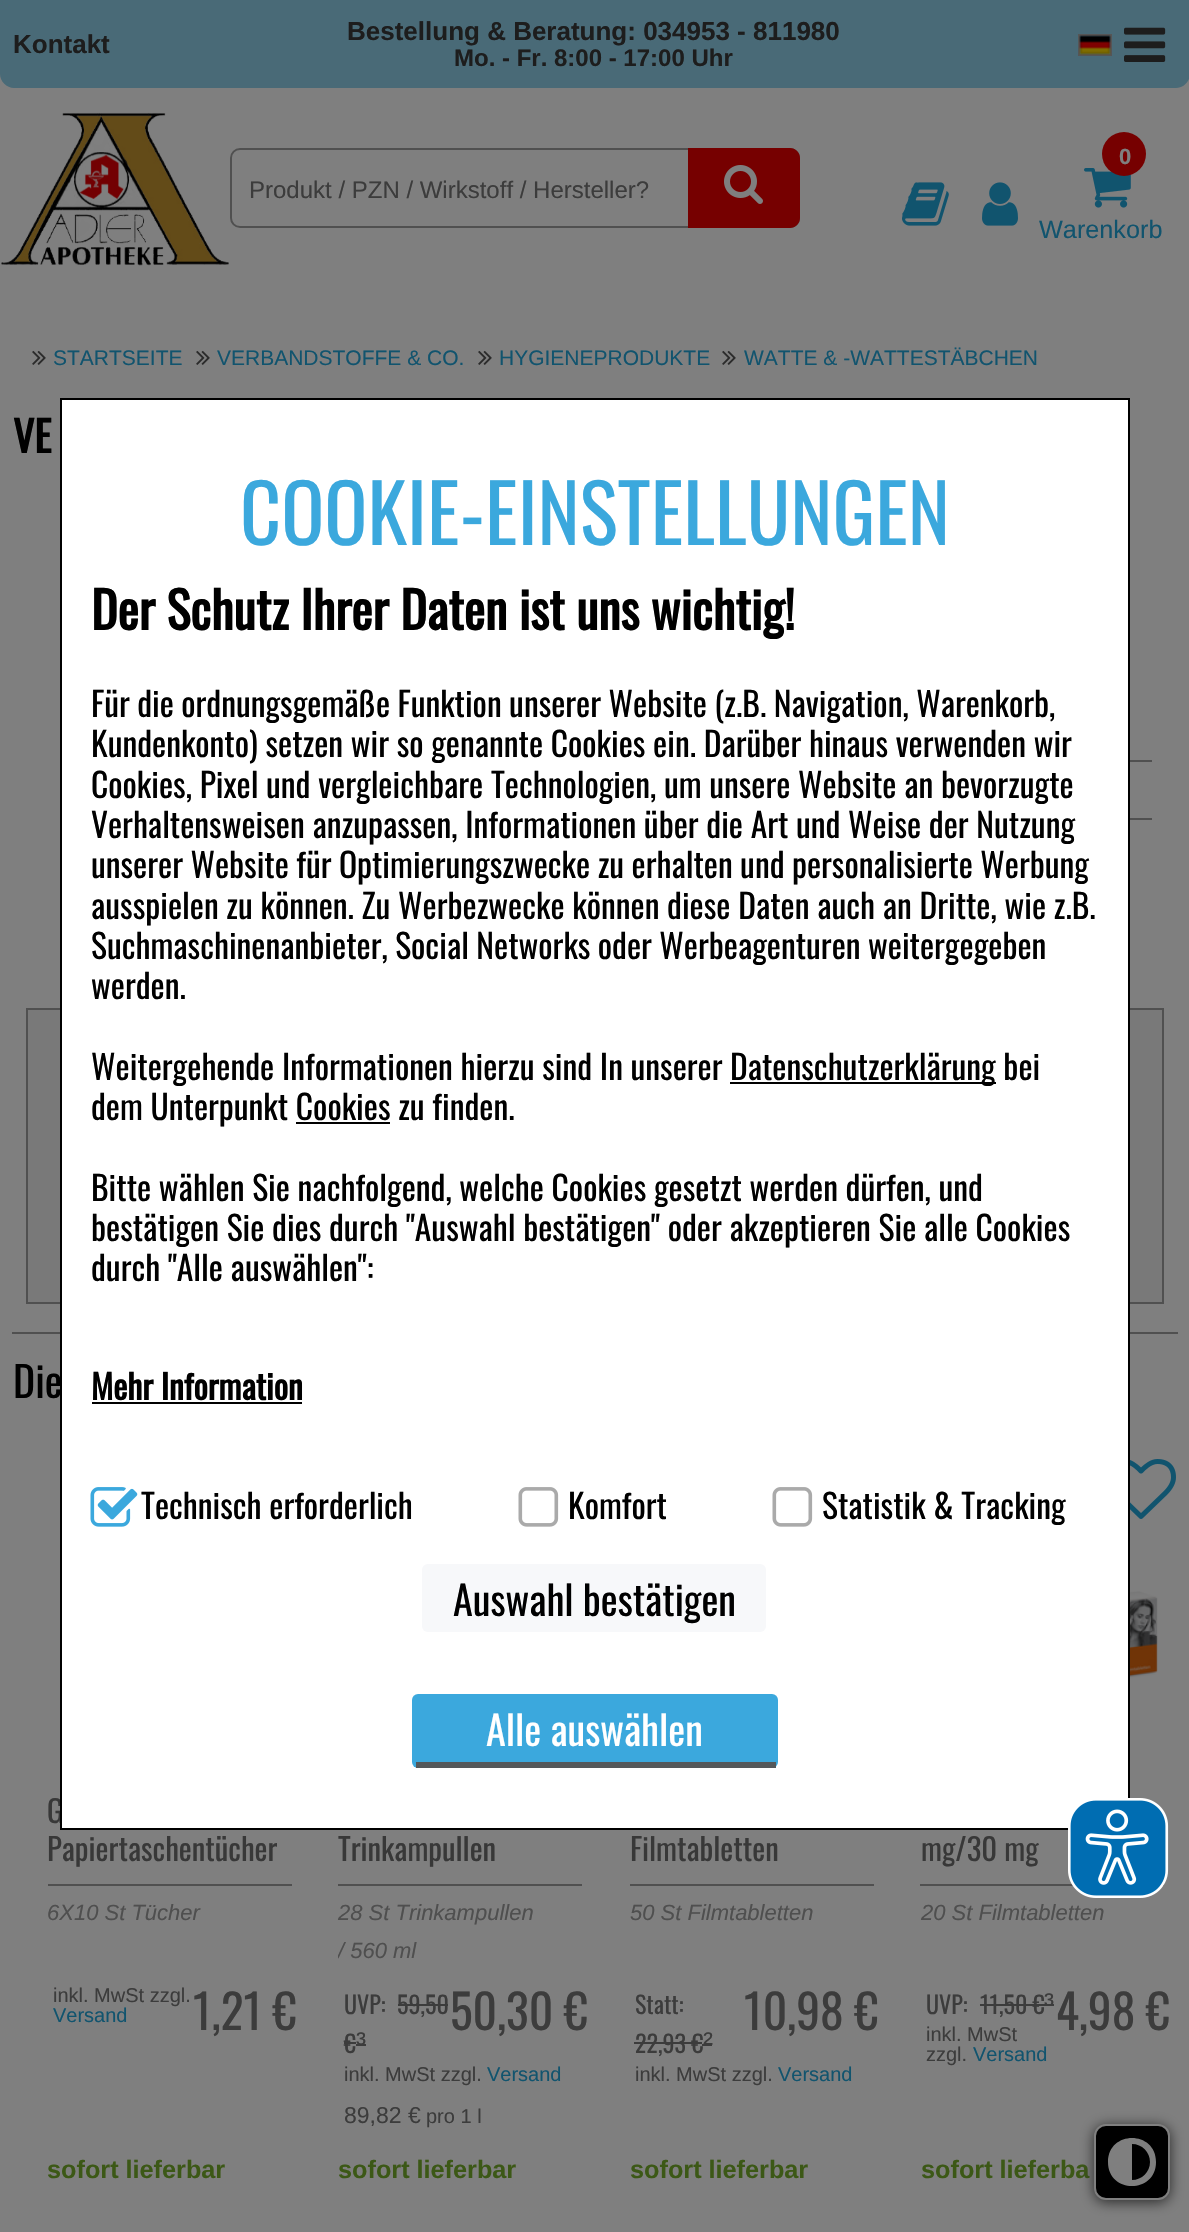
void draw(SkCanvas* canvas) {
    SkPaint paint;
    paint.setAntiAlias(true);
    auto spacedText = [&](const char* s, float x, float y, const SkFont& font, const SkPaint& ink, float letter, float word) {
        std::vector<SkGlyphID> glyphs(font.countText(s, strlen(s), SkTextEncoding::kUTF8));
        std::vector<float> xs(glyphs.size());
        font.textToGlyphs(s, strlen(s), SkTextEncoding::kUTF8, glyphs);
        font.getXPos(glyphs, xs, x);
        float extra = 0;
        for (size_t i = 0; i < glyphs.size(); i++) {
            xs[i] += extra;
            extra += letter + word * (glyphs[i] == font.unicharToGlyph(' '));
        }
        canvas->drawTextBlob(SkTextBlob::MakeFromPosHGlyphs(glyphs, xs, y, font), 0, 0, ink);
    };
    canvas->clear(0xFFFFFFFF);
    paint.setColor(0xFF93D4EE);
    canvas->drawPath(SkPathBuilder().moveTo(0, 0).lineTo(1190, 0).lineTo(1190, 74).cubicTo(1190, 81.5f, 1183.5f, 88, 1176, 88).lineTo(14, 88).cubicTo(6.5f, 88, 0, 81.5f, 0, 74).close().detach(), paint);
    SkFont font1(fontMgr->matchFamilyStyle("Liberation Sans", SkFontStyle::Bold()), 26);
    font1.setSubpixel(true);
    paint.setColor(0xFF393939);
    canvas->drawString("Kontakt", 13, 53, font1, paint);
    canvas->drawString("Bestellung & Beratung: 034953 - 811980", 347, 40, font1, paint);
    SkFont font2(fontMgr->matchFamilyStyle("Liberation Sans", SkFontStyle::Bold()), 24);
    font2.setSubpixel(true);
    canvas->drawString("Mo. - Fr. 8:00 - 17:00 Uhr", 454, 66, font2, paint);
    paint.setStyle(SkPaint::kStroke_Style);
    paint.setStrokeWidth(2);
    paint.setColor(0xFFAAAAAA);
    canvas->drawRect(SkRect::MakeXYWH(1079, 35, 32, 20), paint);
    canvas->drawImageRect(SkImages::DeferredFromEncodedData(SkData::MakeFromFileName("img1.png")), SkRect::MakeXYWH(1079, 35, 32, 20), SkSamplingOptions());
    canvas->drawImageRect(SkImages::DeferredFromEncodedData(SkData::MakeFromFileName("img2.png")), SkRect::MakeXYWH(1124, 27, 42, 35), SkSamplingOptions());
    canvas->drawImageRect(SkImages::DeferredFromEncodedData(SkData::MakeFromFileName("img3.png")), SkRect::MakeXYWH(1, 112, 228, 154), SkSamplingOptions());
    paint.setColor(0xFFA1A1A1);
    canvas->drawRoundRect(SkRect::MakeXYWH(231, 149, 568, 78), 9, 9, paint);
    SkFont font3(fontMgr->matchFamilyStyle("Liberation Sans", SkFontStyle::Normal()), 24);
    font3.setSubpixel(true);
    paint.setStyle(SkPaint::kFill_Style);
    paint.setColor(0xFF777777);
    canvas->drawString("Produkt / PZN / Wirkstoff / Hersteller?", 249, 198, font3, paint);
    paint.setColor(0xFFED0000);
    canvas->drawPath(SkPathBuilder().moveTo(688, 148).lineTo(790, 148).cubicTo(795.5f, 148, 800, 152.5f, 800, 158).lineTo(800, 218).cubicTo(800, 223.5f, 795.5f, 228, 790, 228).lineTo(688, 228).close().detach(), paint);
    canvas->drawImageRect(SkImages::DeferredFromEncodedData(SkData::MakeFromFileName("img4.png")), SkRect::MakeXYWH(724, 165, 39, 39), SkSamplingOptions());
    canvas->drawImageRect(SkImages::DeferredFromEncodedData(SkData::MakeFromFileName("img5.png")), SkRect::MakeXYWH(902, 182, 47, 44), SkSamplingOptions());
    canvas->drawImageRect(SkImages::DeferredFromEncodedData(SkData::MakeFromFileName("img6.png")), SkRect::MakeXYWH(982, 182, 36, 44), SkSamplingOptions());
    canvas->drawImageRect(SkImages::DeferredFromEncodedData(SkData::MakeFromFileName("img7.png")), SkRect::MakeXYWH(1084, 168, 47, 40), SkSamplingOptions());
    canvas->drawCircle(1124, 154, 22, paint);
    SkFont font4(fontMgr->matchFamilyStyle("Liberation Sans", SkFontStyle::Bold()), 22);
    font4.setSubpixel(true);
    paint.setColor(0xFFFFFFFF);
    canvas->drawString("0", 1119, 164, font4, paint);
    SkFont font5(fontMgr->matchFamilyStyle("Liberation Sans", SkFontStyle::Normal()), 25.25f);
    font5.setSubpixel(true);
    paint.setColor(0xFF22A8DD);
    canvas->drawString("Warenkorb", 1039, 238, font5, paint);
    canvas->drawImageRect(SkImages::DeferredFromEncodedData(SkData::MakeFromFileName("img8.png")), SkRect::MakeXYWH(32, 350, 14, 15), SkSamplingOptions());
    SkFont font6(fontMgr->matchFamilyStyle("Liberation Sans", SkFontStyle::Normal()), 21);
    font6.setSubpixel(true);
    canvas->drawString("STARTSEITE", 53, 365, font6, paint);
    canvas->drawImageRect(SkImages::DeferredFromEncodedData(SkData::MakeFromFileName("img8.png")), SkRect::MakeXYWH(196, 350, 14, 15), SkSamplingOptions());
    canvas->drawString("VERBANDSTOFFE & CO.", 217, 365, font6, paint);
    canvas->drawImageRect(SkImages::DeferredFromEncodedData(SkData::MakeFromFileName("img8.png")), SkRect::MakeXYWH(478, 350, 14, 15), SkSamplingOptions());
    canvas->drawString("HYGIENEPRODUKTE", 499, 365, font6, paint);
    canvas->drawImageRect(SkImages::DeferredFromEncodedData(SkData::MakeFromFileName("img8.png")), SkRect::MakeXYWH(722, 350, 14, 15), SkSamplingOptions());
    canvas->drawString("WATTE & -WATTESTÄBCHEN", 744, 365, font6, paint);
    SkFont font7(fontMgr->matchFamilyStyle("Oswald", SkFontStyle::Bold()), 42);
    font7.setSubpixel(true);
    paint.setColor(0xFF000000);
    canvas->drawString("VE", 13, 453, font7, paint);
    paint.setColor(0xFFA1A1A1);
    canvas->drawRect(SkRect::MakeXYWH(1130, 760, 22, 2), paint);
    canvas->drawRect(SkRect::MakeXYWH(1130, 818, 22, 2), paint);
    paint.setColor(0xFFF2F2F2);
    canvas->drawRect(SkRect::MakeXYWH(27, 1009, 1136, 294), paint);
    paint.setStyle(SkPaint::kStroke_Style);
    paint.setColor(0xFFA1A1A1);
    canvas->drawRect(SkRect::MakeXYWH(27, 1009, 1136, 294), paint);
    paint.setStyle(SkPaint::kFill_Style);
    canvas->drawRect(SkRect::MakeXYWH(12, 1332, 1166, 2), paint);
    SkFont font8(fontMgr->matchFamilyStyle("Oswald", SkFontStyle::Normal()), 42);
    font8.setSubpixel(true);
    paint.setColor(0xFF000000);
    canvas->drawString("Die", 13, 1398, font8, paint);
    SkFont font9(fontMgr->matchFamilyStyle("Oswald", SkFontStyle::Normal()), 30.75f);
    font9.setSubpixel(true);
    paint.setColor(0xFF6F6F6F);
    canvas->drawString("G", 47, 1823, font9, paint);
    canvas->drawString("Papiertaschentücher", 47, 1861, font9, paint);
    paint.setColor(0xFFA1A1A1);
    canvas->drawRect(SkRect::MakeXYWH(48, 1884, 244, 2), paint);
    SkFont font10(fontMgr->matchFamilyStyle("Liberation Sans", SkFontStyle::Italic()), 22);
    font10.setSubpixel(true);
    paint.setColor(0xFF9E9E9E);
    canvas->drawString("6X10 St Tücher", 47, 1920, font10, paint);
    SkFont font11(fontMgr->matchFamilyStyle("Liberation Sans", SkFontStyle::Normal()), 20);
    font11.setSubpixel(true);
    paint.setColor(0xFF777777);
    canvas->drawString("inkl. MwSt zzgl.", 53, 2002, font11, paint);
    paint.setColor(0xFF22A8DD);
    canvas->drawString("Versand", 53, 2022, font11, paint);
    SkFont font12(fontMgr->matchFamilyStyle("Oswald", SkFontStyle::Normal()), 47.5f);
    font12.setSubpixel(true);
    paint.setColor(0xFF777777);
    canvas->drawString("1,21 €", 193, 2030, font12, paint);
    SkFont font13(fontMgr->matchFamilyStyle("Liberation Sans", SkFontStyle::Bold()), 25.25f);
    font13.setSubpixel(true);
    paint.setColor(0xFF78B12C);
    canvas->drawString("sofort lieferbar", 47, 2178, font13, paint);
    paint.setColor(0xFF6F6F6F);
    canvas->drawString("Trinkampullen", 338, 1861, font9, paint);
    paint.setColor(0xFFA1A1A1);
    canvas->drawRect(SkRect::MakeXYWH(338, 1884, 244, 2), paint);
    paint.setColor(0xFF9E9E9E);
    canvas->drawString("28 St Trinkampullen", 338, 1920, font10, paint);
    canvas->save();
    canvas->clipRect(SkRect::MakeXYWH(338, 1886, 244, 100));
    canvas->drawString("/ 560 ml", 338, 1958, font10, paint);
    canvas->restore();
    SkFont font14(fontMgr->matchFamilyStyle("Oswald", SkFontStyle::Normal()), 24);
    font14.setSubpixel(true);
    paint.setColor(0xFF777777);
    canvas->drawString("UVP:", 344, 2014, font14, paint);
    canvas->drawString("59,50", 397, 2014, font14, paint);
    canvas->drawRect(SkRect::MakeXYWH(398, 2004, 50, 2), paint);
    canvas->drawString("50,30 €", 450, 2030, font12, paint);
    canvas->drawString("€", 344, 2053, font14, paint);
    canvas->drawRect(SkRect::MakeXYWH(344, 2042, 12, 2), paint);
    canvas->drawRect(SkRect::MakeXYWH(356, 2044, 10, 2), paint);
    SkFont font15(fontMgr->matchFamilyStyle("Liberation Sans", SkFontStyle::Normal()), 30);
    font15.setSubpixel(true);
    canvas->drawString("³", 356, 2053, font15, paint);
    canvas->drawString("inkl. MwSt zzgl.", 344, 2081, font11, paint);
    paint.setColor(0xFF22A8DD);
    canvas->drawString("Versand", 487, 2081, font11, paint);
    SkFont font16(fontMgr->matchFamilyStyle("Liberation Sans", SkFontStyle::Normal()), 23);
    font16.setSubpixel(true);
    paint.setColor(0xFF777777);
    canvas->drawString("89,82 €", 344, 2123, font16, paint);
    canvas->drawString("pro 1 l", 426, 2123, font11, paint);
    paint.setColor(0xFF78B12C);
    canvas->drawString("sofort lieferbar", 338, 2178, font13, paint);
    paint.setColor(0xFF6F6F6F);
    canvas->drawString("Filmtabletten", 630, 1861, font9, paint);
    paint.setColor(0xFFA1A1A1);
    canvas->drawRect(SkRect::MakeXYWH(630, 1884, 244, 2), paint);
    paint.setColor(0xFF9E9E9E);
    canvas->drawString("50 St Filmtabletten", 630, 1920, font10, paint);
    paint.setColor(0xFF777777);
    canvas->drawString("Statt:", 635, 2014, font14, paint);
    canvas->drawString("10,98 €", 744, 2030, font12, paint);
    canvas->drawString("22,93 €", 635, 2053, font14, paint);
    canvas->drawRect(SkRect::MakeXYWH(634, 2042, 68, 2), paint);
    canvas->drawRect(SkRect::MakeXYWH(702, 2044, 10, 2), paint);
    canvas->drawString("²", 703, 2053, font15, paint);
    canvas->drawString("inkl. MwSt zzgl.", 635, 2081, font11, paint);
    paint.setColor(0xFF22A8DD);
    canvas->drawString("Versand", 778, 2081, font11, paint);
    paint.setColor(0xFF78B12C);
    canvas->drawString("sofort lieferbar", 630, 2178, font13, paint);
    canvas->drawImageRect(SkImages::DeferredFromEncodedData(SkData::MakeFromFileName("img9.png")), SkRect::MakeXYWH(1130, 1459, 46, 60), SkSamplingOptions());
    canvas->drawImageRect(SkImages::DeferredFromEncodedData(SkData::MakeFromFileName("img10.png")), SkRect::MakeXYWH(1130, 1591, 28, 108), SkSamplingOptions());
    paint.setColor(0xFF6F6F6F);
    canvas->drawString("mg/30 mg", 921, 1861, font9, paint);
    paint.setColor(0xFFA1A1A1);
    canvas->drawRect(SkRect::MakeXYWH(920, 1884, 244, 2), paint);
    paint.setColor(0xFF9E9E9E);
    canvas->drawString("20 St Filmtabletten", 921, 1920, font10, paint);
    paint.setColor(0xFF777777);
    canvas->drawString("UVP:", 926, 2014, font14, paint);
    canvas->drawString("11,50 €", 980, 2014, font14, paint);
    canvas->drawRect(SkRect::MakeXYWH(980, 2004, 64, 2), paint);
    canvas->drawRect(SkRect::MakeXYWH(1044, 2004, 10, 2), paint);
    canvas->drawString("³", 1044, 2014, font15, paint);
    canvas->drawString("4,98 €", 1056, 2030, font12, paint);
    canvas->drawString("inkl. MwSt", 926, 2041, font11, paint);
    canvas->drawString("zzgl.", 926, 2061, font11, paint);
    paint.setColor(0xFF22A8DD);
    canvas->drawString("Versand", 973, 2061, font11, paint);
    paint.setColor(0xFF78B12C);
    canvas->drawString("sofort lieferba", 921, 2178, font13, paint);
    paint.setColor(0xFF505050);
    paint.setMaskFilter(SkMaskFilter::MakeBlur(kNormal_SkBlurStyle, 7));
    canvas->drawRoundRect(SkRect::MakeXYWH(1094, 2126, 76, 76), 12, 12, paint);
    paint.setMaskFilter(nullptr);
    paint.setColor(0xFF000000);
    canvas->drawRoundRect(SkRect::MakeXYWH(1095, 2125, 74, 74), 11, 11, paint);
    paint.setStyle(SkPaint::kStroke_Style);
    paint.setColor(0xFFFFFFFF);
    canvas->drawRoundRect(SkRect::MakeXYWH(1095, 2125, 74, 74), 11, 11, paint);
    paint.setStyle(SkPaint::kFill_Style);
    canvas->drawPath(SkPathBuilder().moveTo(1150, 2162).cubicTo(1150, 2152, 1142, 2144, 1132, 2144).lineTo(1132, 2180).cubicTo(1142, 2180, 1150, 2172, 1150, 2162).close().moveTo(1108, 2162).cubicTo(1108, 2130, 1156, 2130, 1156, 2162).cubicTo(1156, 2194, 1108, 2194, 1108, 2162).close().detach(), paint);
    paint.setStyle(SkPaint::kStroke_Style);
    paint.setStrokeWidth(19998);
    paint.setColor(0x80000000);
    canvas->drawRect(SkRect::MakeXYWH(-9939, -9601, 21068, 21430), paint);
    paint.setStyle(SkPaint::kFill_Style);
    paint.setColor(0xFFFFFFFF);
    canvas->drawRect(SkRect::MakeXYWH(62, 1008, 1066, 815), paint);
    paint.setStyle(SkPaint::kStroke_Style);
    paint.setStrokeWidth(2);
    paint.setColor(0xFF000000);
    canvas->drawRect(SkRect::MakeXYWH(61, 399, 1068, 1430), paint);
    SkFont font17(fontMgr->matchFamilyStyle("Oswald", SkFontStyle::Normal()), 80);
    font17.setSubpixel(true);
    paint.setStyle(SkPaint::kFill_Style);
    paint.setColor(0xFF3BA8DD);
    canvas->drawString("COOKIE-EINSTELLUNGEN", 240, 545, font17, paint);
    SkFont font18(fontMgr->matchFamilyStyle("Oswald", SkFontStyle::Bold()), 50.4f);
    font18.setSubpixel(true);
    paint.setColor(0xFF000000);
    canvas->drawString("Der Schutz Ihrer Daten ist uns wichtig!", 91, 630, font18, paint);
    SkFont font19(fontMgr->matchFamilyStyle("Oswald", SkFontStyle::Normal()), 33.6f);
    font19.setSubpixel(true);
    spacedText("Für die ordnungsgemäße Funktion unserer Website (z.B. Navigation, Warenkorb,", 91, 717, font19, paint, 0, -0.25f);
    canvas->drawString("Kundenkonto) setzen wir so genannte Cookies ein. Darüber hinaus verwenden wir", 91, 757, font19, paint);
    canvas->drawString("Cookies, Pixel und vergleichbare Technologien, um unsere Website an bevorzugte", 91, 798, font19, paint);
    canvas->drawString("Verhaltensweisen anzupassen, Informationen über die Art und Weise der Nutzung", 91, 838, font19, paint);
    spacedText("unserer Website für Optimierungszwecke zu erhalten und personalisierte Werbung", 91, 878, font19, paint, 0, -0.25f);
    canvas->drawString("ausspielen zu können. Zu Werbezwecke können diese Daten auch an Dritte, wie z.B.", 91, 919, font19, paint);
    spacedText("Suchmaschinenanbieter, Social Networks oder Werbeagenturen weitergegeben", 91, 959, font19, paint, 0, -0.25f);
    canvas->drawString("werden.", 91, 999, font19, paint);
    canvas->drawString("Weitergehende Informationen hierzu sind In unserer", 91, 1080, font19, paint);
    canvas->drawRect(SkRect::MakeXYWH(730, 1082, 266, 2), paint);
    canvas->drawString("Datenschutzerklärung bei", 730, 1080, font19, paint);
    canvas->drawString("dem Unterpunkt Cookies zu finden.", 91, 1120, font19, paint);
    canvas->drawRect(SkRect::MakeXYWH(296, 1122, 94, 2), paint);
    canvas->drawString("Bitte wählen Sie nachfolgend, welche Cookies gesetzt werden dürfen, und", 91, 1201, font19, paint);
    canvas->drawString("bestätigen Sie dies durch \"Auswahl bestätigen\" oder akzeptieren Sie alle Cookies", 91, 1241, font19, paint);
    canvas->drawString("durch \"Alle auswählen\":", 91, 1281, font19, paint);
    SkFont font20(fontMgr->matchFamilyStyle("Oswald", SkFontStyle::Bold()), 33.6f);
    font20.setSubpixel(true);
    canvas->drawString("Mehr Information", 91, 1400, font20, paint);
    canvas->drawRect(SkRect::MakeXYWH(92, 1402, 210, 2), paint);
    canvas->drawImageRect(SkImages::DeferredFromEncodedData(SkData::MakeFromFileName("img11.png")), SkRect::MakeXYWH(90, 1487, 48, 40), SkSamplingOptions());
    canvas->drawString("Technisch erforderlich", 141, 1519, font19, paint);
    canvas->drawImageRect(SkImages::DeferredFromEncodedData(SkData::MakeFromFileName("img12.png")), SkRect::MakeXYWH(518, 1487, 41, 40), SkSamplingOptions());
    canvas->drawString("Komfort", 568, 1519, font19, paint);
    canvas->drawImageRect(SkImages::DeferredFromEncodedData(SkData::MakeFromFileName("img12.png")), SkRect::MakeXYWH(772, 1487, 41, 40), SkSamplingOptions());
    canvas->drawString("Statistik & Tracking", 822, 1519, font19, paint);
    paint.setColor(0xFFF7F8FA);
    canvas->drawRoundRect(SkRect::MakeXYWH(422, 1564, 344, 68), 6, 6, paint);
    SkFont font21(fontMgr->matchFamilyStyle("Oswald", SkFontStyle::Normal()), 40.25f);
    font21.setSubpixel(true);
    paint.setColor(0xFF000000);
    canvas->drawString("Auswahl bestätigen", 453, 1616, font21, paint);
    paint.setColor(0xFF3BA8DD);
    canvas->drawRoundRect(SkRect::MakeXYWH(412, 1694, 366, 74), 6, 6, paint);
    paint.setColor(0xFF54585A);
    canvas->drawRect(SkRect::MakeXYWH(416, 1762, 360, 6), paint);
    paint.setColor(0xFFFFFFFF);
    canvas->drawString("Alle auswählen", 486, 1746, font21, paint);
    canvas->drawImageRect(SkImages::DeferredFromEncodedData(SkData::MakeFromFileName("img13.png")), SkRect::MakeXYWH(1068, 1798, 101, 100), SkSamplingOptions());
}
